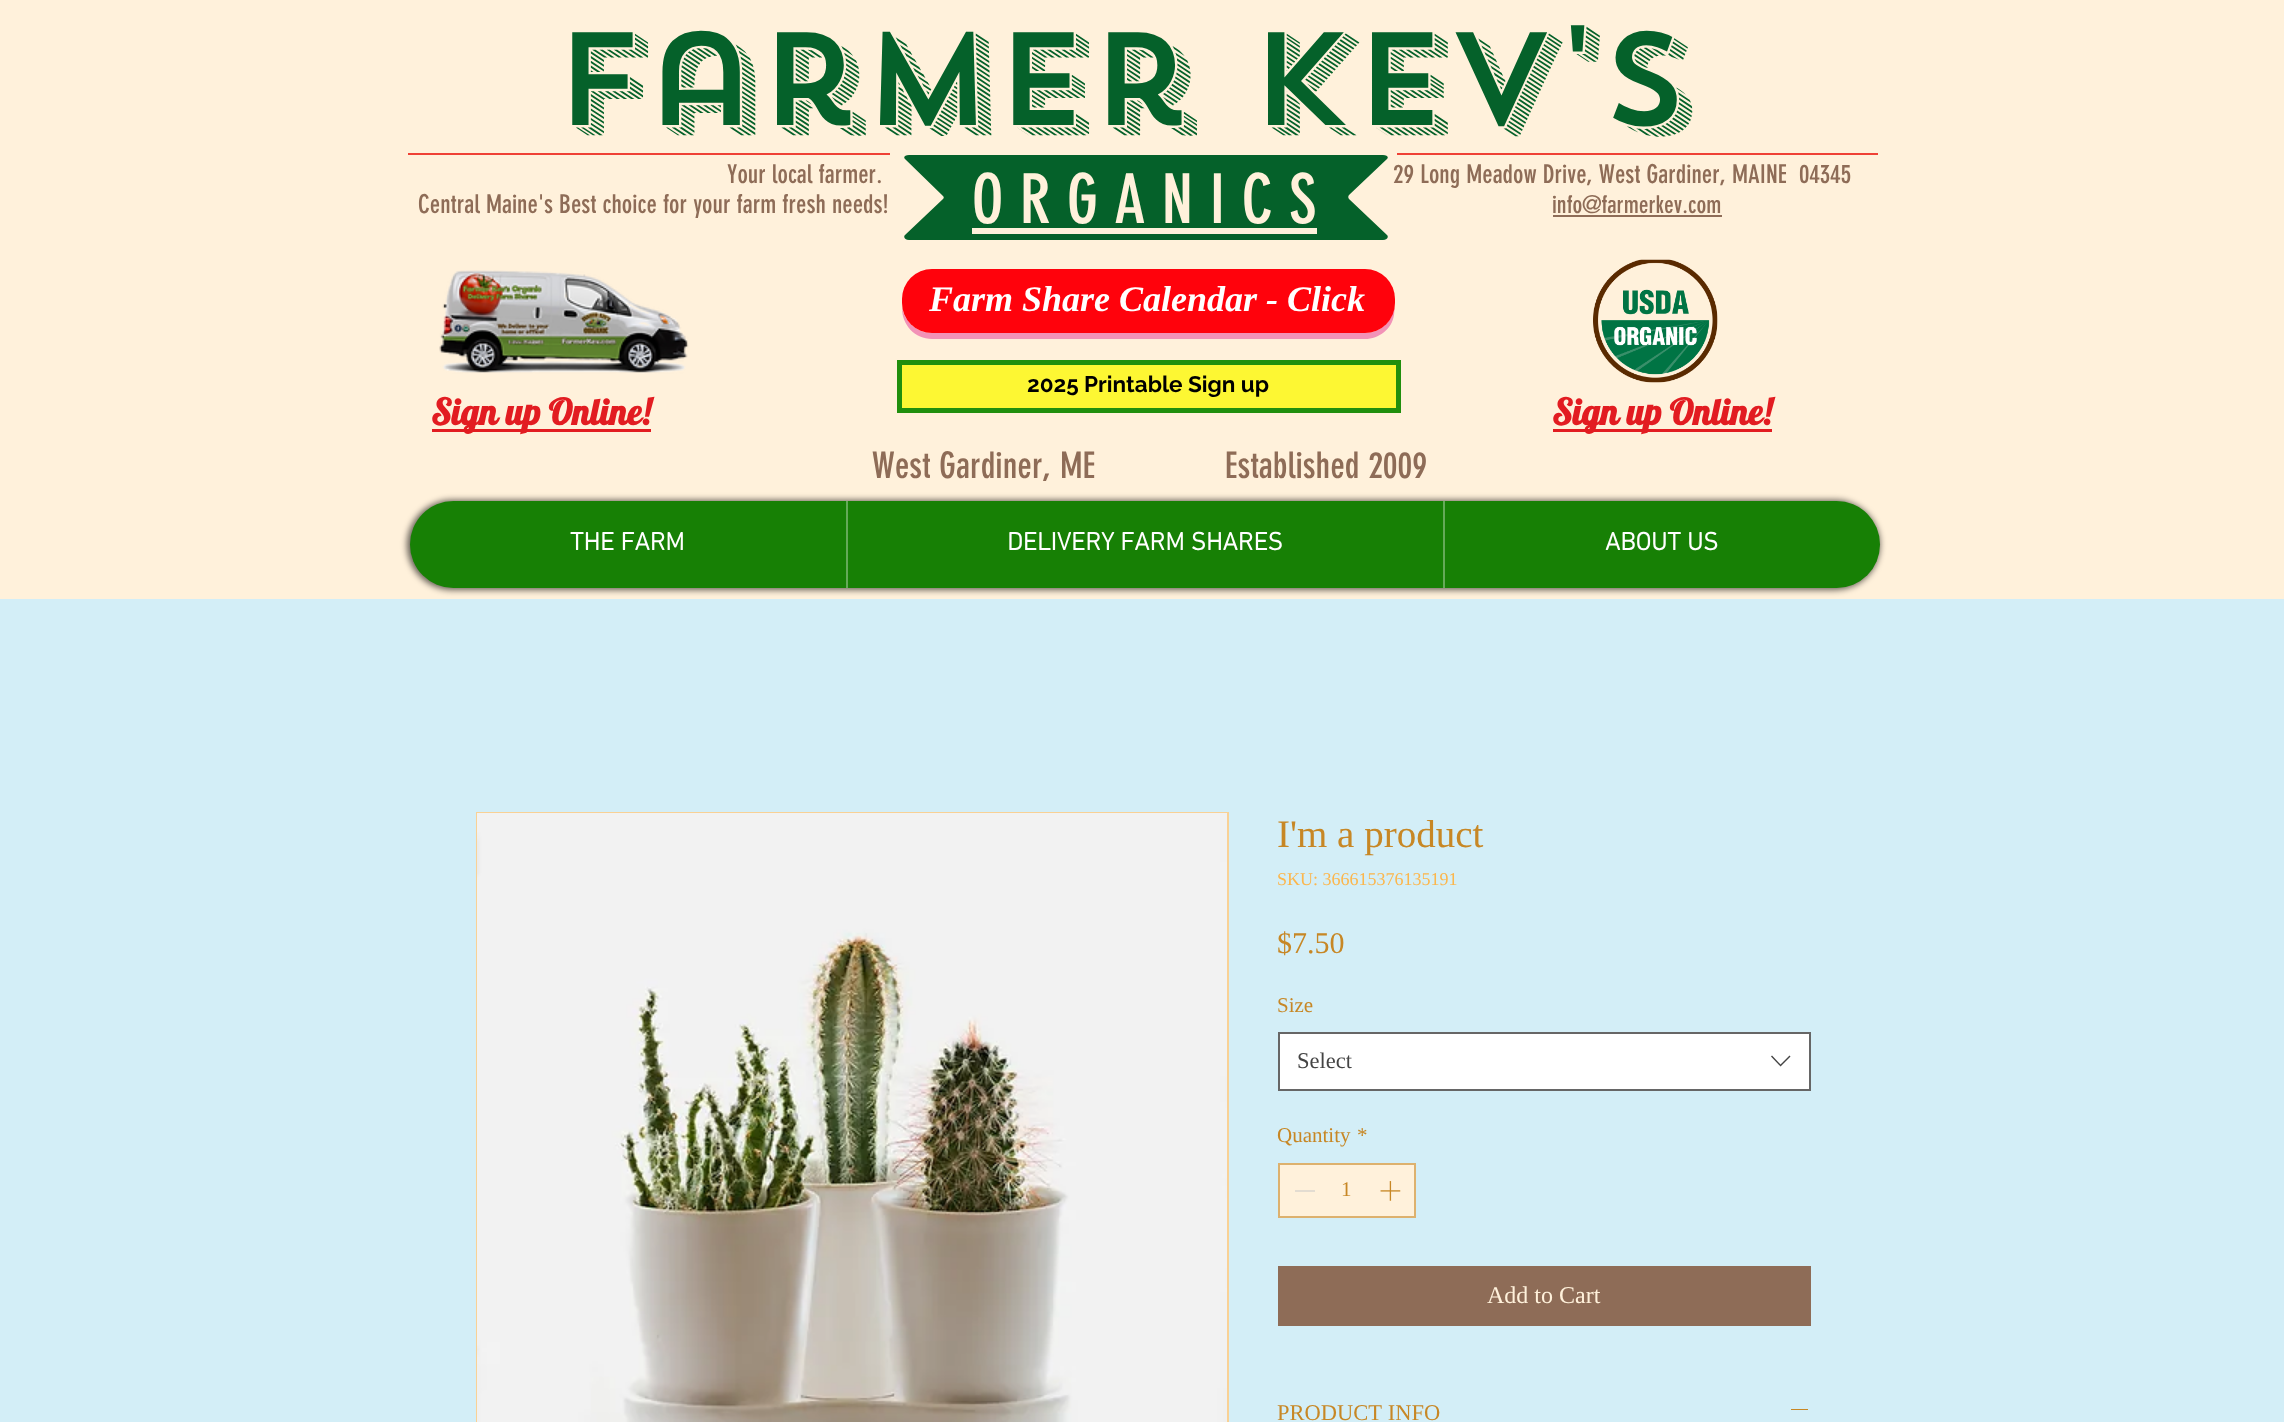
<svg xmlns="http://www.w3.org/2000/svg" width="2284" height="1422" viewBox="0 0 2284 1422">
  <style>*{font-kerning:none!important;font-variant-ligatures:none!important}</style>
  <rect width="100%" height="100%" fill="rgb(211,238,247)"/>
  <rect x="0" y="0" width="2284" height="599" fill="rgb(255,241,219)"/>
  <text x="553" y="125" font-family="'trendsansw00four'" font-size="132" font-weight="500" fill="rgb(5,97,42)">Farmer Kev's</text>
  <rect x="408" y="153" width="482" height="2" fill="rgb(239,65,53)"/>
  <rect x="1397" y="153" width="481" height="2" fill="rgb(239,65,53)"/>
  <g font-family="'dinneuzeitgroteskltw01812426'" font-size="25.5" fill="rgb(142,108,87)">
    <text x="727" y="183">Your local farmer.</text>
    <text x="418" y="213">Central Maine's Best choice for your farm fresh needs!</text>
  </g>
  <path d="M1387 159C1389 157 1387 155 1383 155H909C905 155 903 157 905 159L943 196C944 197 944 198 943 199L905 235C903 237 905 240 909 240H1383C1387 240 1389 237 1387 235L1349 199C1348 198 1348 196 1349 195Z" fill="rgb(5,97,42)"/>
  <text x="1393" y="183" font-family="'dinneuzeitgroteskltw01812426'" font-size="25.5" fill="rgb(142,108,87)">29 Long Meadow Drive, West Gardiner,</text>
  <text x="1732" y="183" font-family="'dinneuzeitgroteskltw01812426'" font-size="25.5" fill="rgb(142,108,87)" xml:space="preserve">MAINE  04345</text>
  <text x="1552" y="213" font-family="'dinneuzeitgroteskltw01812426'" font-size="24" fill="rgb(142,108,87)">info@farmerkev.com</text>
  <rect x="1553" y="215" width="169" height="2" fill="rgb(142,108,87)"/>
  <text x="972" y="223" font-family="'dinneuzeitgroteskltw01812426'" font-size="67.5" fill="rgb(255,241,219)">O R G A N I C S</text>
  <rect x="972" y="228" width="345" height="6" fill="rgb(255,241,219)"/>
  <image x="439" y="270" width="250" height="104" href="pic1.png"/>
  <path d="M902 308C902 325 915 339 932 339H1365C1379 339 1392 329 1394 315L1395 304C1394 320 1381 333 1365 333H932C917 333 905 322 902 308Z" fill="rgb(242,146,183)"/>
  <rect x="902" y="269" width="493" height="64" rx="30" fill="rgb(255,2,12)"/>
  <text x="929" y="311" font-family="Liberation Serif" font-size="36" font-weight="bold" font-style="italic" fill="rgb(255,255,255)">Farm Share Calendar - Click</text>
  <image x="1593" y="259" width="125" height="124" href="pic2.png"/>
  <rect x="899.5" y="362.5" width="499" height="48" fill="rgb(253,247,51)" stroke="rgb(32,143,13)" stroke-width="5"/>
  <text x="1027" y="392" font-family="Raleway" font-size="22.5" font-weight="bold" fill="rgb(0,0,0)">2025 Printable Sign up</text>
  <rect x="432" y="429" width="219" height="3" fill="rgb(226,28,33)"/>
  <text x="431" y="425" font-family="Lobster" font-size="36" font-weight="bold" fill="rgb(226,28,33)">Sign up Online!</text>
  <rect x="1553" y="429" width="219" height="3" fill="rgb(226,28,33)"/>
  <text x="1552" y="425" font-family="Lobster" font-size="36" font-weight="bold" fill="rgb(226,28,33)">Sign up Online!</text>
  <text x="872" y="478" font-family="'dinneuzeitgroteskltw01812426'" font-size="36" fill="rgb(142,108,87)" xml:space="preserve">West Gardiner, ME               Established 2009</text>
  <rect x="407" y="500" width="1473" height="90" rx="45" fill="rgba(0,0,0,0.6)" filter="blur(3px)"/>
  <rect x="410" y="501" width="1470" height="87" rx="43.5" fill="rgb(23,128,5)"/>
  <text x="570" y="550" font-family="'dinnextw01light'" font-size="25.5" font-weight="bold" fill="rgb(255,255,255)">THE FARM</text>
  <rect x="846" y="501" width="2" height="87" fill="rgb(100,170,88)"/>
  <text x="1007" y="550" font-family="'dinnextw01light'" font-size="25.5" font-weight="bold" fill="rgb(255,255,255)">DELIVERY FARM SHARES</text>
  <rect x="1443" y="501" width="2" height="87" fill="rgb(100,170,88)"/>
  <text x="1605" y="550" font-family="'dinnextw01light'" font-size="25.5" font-weight="bold" fill="rgb(255,255,255)">ABOUT US</text>
  <rect x="477" y="813" width="751" height="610" fill="none" stroke="rgb(249,209,149)" stroke-width="2"/>
  <image x="477" y="813" width="750" height="609" href="pic3.png"/>
  <text x="1277" y="847" font-family="Liberation Serif" font-size="39" fill="rgb(199,135,37)">I'm a product</text>
  <text x="1277" y="885" font-family="Liberation Serif" font-size="18" fill="rgb(252,182,76)">SKU: 366615376135191</text>
  <text x="1277" y="953" font-family="Liberation Serif" font-size="30" fill="rgb(199,135,37)">$7.50</text>
  <text x="1277" y="1012" font-family="Liberation Serif" font-size="21" fill="rgb(199,135,37)">Size</text>
  <rect x="1279" y="1033" width="531" height="57" fill="rgb(255,255,255)" stroke="rgb(102,102,102)" stroke-width="2"/>
  <text x="1297" y="1068" font-family="Liberation Serif" font-size="22.5" fill="rgb(68,68,68)">Select</text>
  <path d="M1789.5 1055.5L1790.5 1056.5L1780.5 1066.5L1771 1056.5L1772 1055.5L1780.5 1064.5Z" fill="rgb(68,68,68)" fill-rule="evenodd"/>
  <g font-family="Liberation Serif" font-size="21" fill="rgb(199,135,37)">
    <text x="1277" y="1142">Quantity</text>
    <text x="1357" y="1142">*</text>
  </g>
  <rect x="1279" y="1164" width="136" height="53" fill="rgb(255,241,219)" stroke="rgb(221,177,110)" stroke-width="2"/>
  <rect x="1295" y="1190" width="20" height="2" fill="rgb(227,220,209)"/>
  <text x="1341" y="1196" font-family="Liberation Serif" font-size="21" fill="rgb(199,135,37)">1</text>
  <image x="1380" y="1181" width="21" height="20" href="pic4.png"/>
  <rect x="1278" y="1266" width="533" height="60" fill="rgb(142,108,87)"/>
  <text x="1487" y="1303" font-family="Liberation Serif" font-size="24" fill="rgb(255,241,219)">Add to Cart</text>
  <text x="1277" y="1420" font-family="Liberation Serif" font-size="22.5" fill="rgb(199,135,37)">PRODUCT INFO</text>
  <rect x="1791" y="1409" width="17" height="1" fill="rgb(199,135,37)"/>
</svg>
